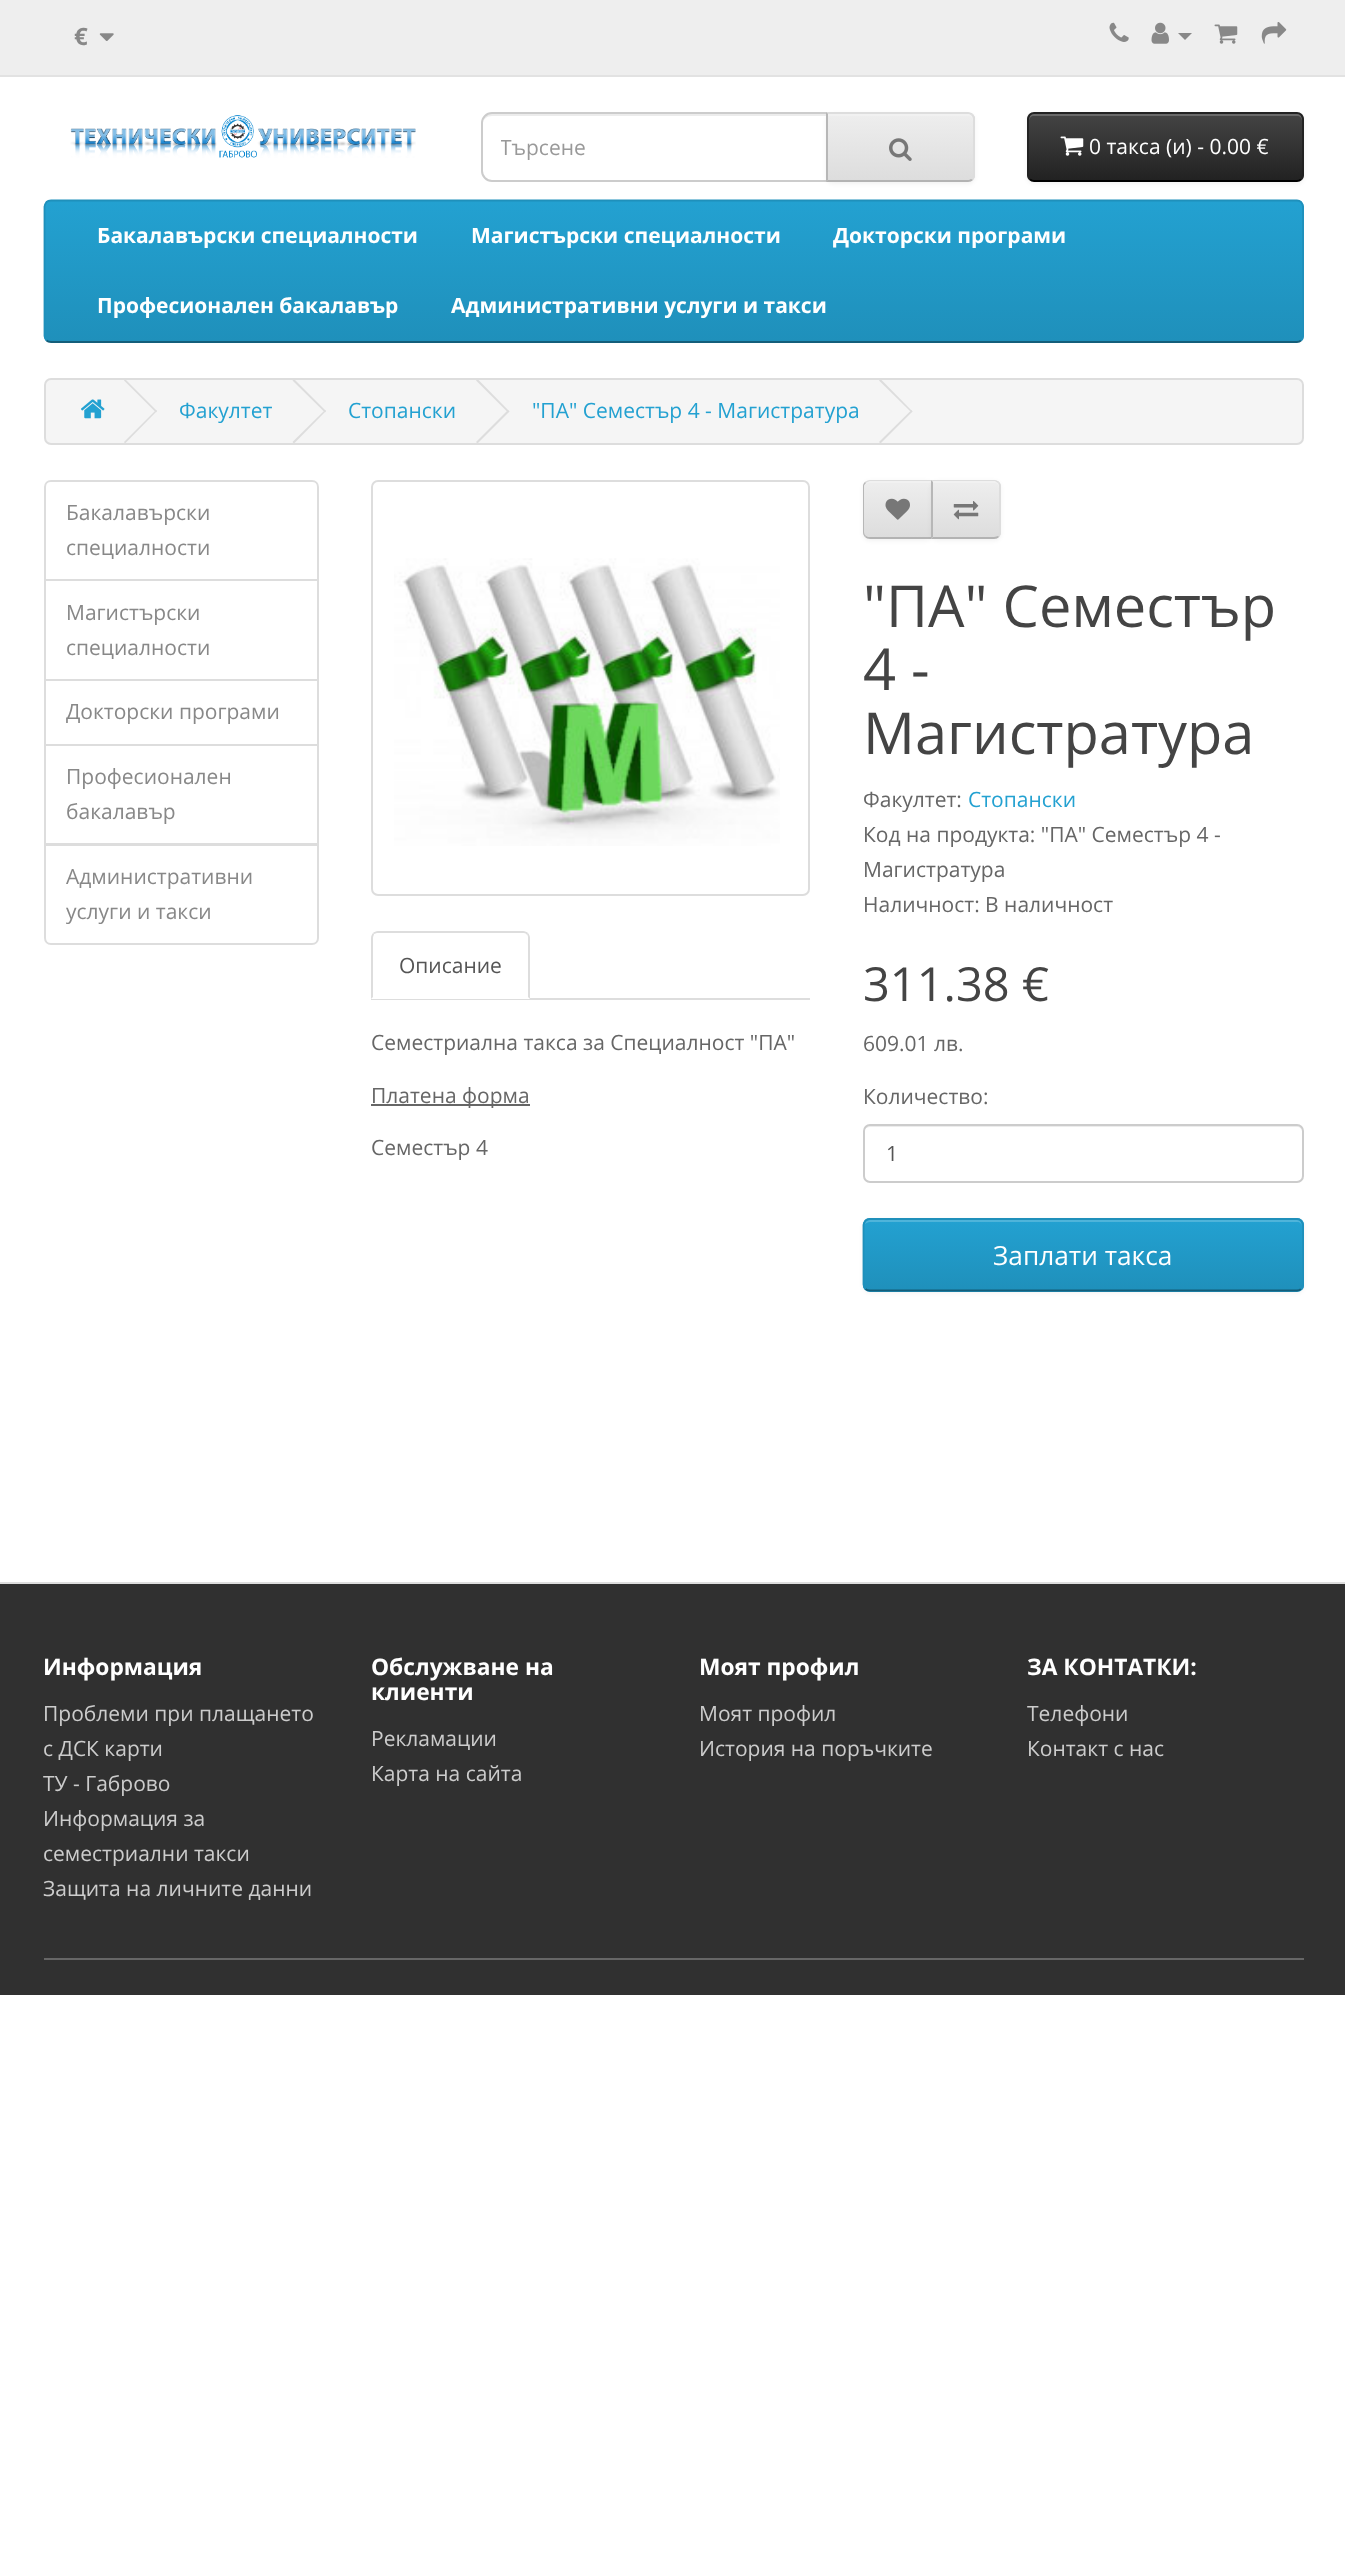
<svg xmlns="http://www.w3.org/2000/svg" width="1345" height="2563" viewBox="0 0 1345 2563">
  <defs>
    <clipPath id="clip1"><rect x="501" y="133" width="308" height="30"/></clipPath>
    <clipPath id="clip2"><path d="M826 112H968C972 112 975 115 975 119V175C975 179 972 182 968 182H826Z"/></clipPath>
    <linearGradient id="g1" gradientUnits="userSpaceOnUse" x1="900" y1="114" x2="900" y2="180"><stop offset="0" stop-color="rgb(238,238,238)"/><stop offset="1" stop-color="rgb(221,221,221)"/></linearGradient>
    <clipPath id="clip3"><rect x="1027" y="112" width="277" height="70" rx="7"/></clipPath>
    <linearGradient id="g2" gradientUnits="userSpaceOnUse" x1="1166" y1="114" x2="1166" y2="180"><stop offset="0" stop-color="rgb(68,68,68)"/><stop offset="1" stop-color="rgb(34,34,34)"/></linearGradient>
    <clipPath id="clip4"><rect x="44" y="200" width="1260" height="143" rx="7"/></clipPath>
    <linearGradient id="g3" gradientUnits="userSpaceOnUse" x1="674" y1="201" x2="674" y2="341"><stop offset="0" stop-color="rgb(35,161,209)"/><stop offset="1" stop-color="rgb(31,144,187)"/></linearGradient>
    <clipPath id="clip5"><path d="M870 480H933V539H870C866 539 863 536 863 532V487C863 483 866 480 870 480Z"/></clipPath>
    <linearGradient id="g4" gradientUnits="userSpaceOnUse" x1="898" y1="481" x2="898" y2="537"><stop offset="0" stop-color="rgb(238,238,238)"/><stop offset="1" stop-color="rgb(221,221,221)"/></linearGradient>
    <clipPath id="clip6"><path d="M931 480H994C998 480 1001 483 1001 487V532C1001 536 998 539 994 539H931Z"/></clipPath>
    <linearGradient id="g5" gradientUnits="userSpaceOnUse" x1="966" y1="481" x2="966" y2="537"><stop offset="0" stop-color="rgb(238,238,238)"/><stop offset="1" stop-color="rgb(221,221,221)"/></linearGradient>
    <clipPath id="clip7"><rect x="863" y="1218" width="441" height="74" rx="7"/></clipPath>
    <linearGradient id="g6" gradientUnits="userSpaceOnUse" x1="1083" y1="1220" x2="1083" y2="1290"><stop offset="0" stop-color="rgb(35,161,209)"/><stop offset="1" stop-color="rgb(31,144,187)"/></linearGradient>
  </defs>
  <rect width="100%" height="100%" fill="rgb(255,255,255)"/>
  <rect x="0" y="0" width="1345" height="75" fill="rgb(238,238,238)"/>
  <rect x="0" y="75" width="1345" height="2" fill="rgb(226,226,226)"/>
  <text x="74" y="45" font-family="Open Sans" font-size="24" font-weight="bold" fill="rgb(136,136,136)">€</text>
  <image x="99" y="33" width="15" height="8" href="pic1.png"/>
  <image x="1109" y="22" width="20" height="20" href="pic2.png"/>
  <image x="1151" y="22" width="18" height="22" href="pic3.png"/>
  <path d="M1178 33H1192L1185 40Z" fill="rgb(136,136,136)"/>
  <image x="1214" y="24" width="24" height="20" href="pic4.png"/>
  <image x="1261" y="22" width="26" height="22" href="pic5.png"/>
  <image x="70" y="115" width="346" height="43" href="pic6.png"/>
  <path d="M492 116H826V114H492C486 114 483 119 483 124C483 119 487 116 492 116Z" fill="rgb(236,236,236)"/>
  <path d="M492 113H827V181H492C486.5 181 482 176.5 482 171V123C482 117.5 486.5 113 492 113Z" fill="none" stroke="rgb(204,204,204)" stroke-width="2"/>
  <g clip-path="url(#clip1)">
    <text x="500" y="155" font-family="Open Sans" font-size="21" fill="rgb(153,153,153)">Търсене</text>
  </g>
  <rect x="826" y="114" width="149" height="70" rx="7" fill="rgba(0,0,0,0.05)" filter="blur(2px)"/>
  <g clip-path="url(#clip2)">
    <rect x="828" y="114" width="147" height="66" fill="url(#g1)"/>
  </g>
  <path d="M828 116H968C971 116 973 118 973 121V119C973 116 971 114 968 114H828Z" fill="rgb(241,241,241)"/>
  <path d="M826 112L828 114H969L971 115L973 114C972 113 970 112 968 112Z" fill="rgb(221,221,221)"/>
  <path d="M975 177L973 180L971 179C972 178 973 177 973 175V119C973 117 972 116 971 115L973 114L975 117Z" fill="rgb(221,221,221)"/>
  <path d="M968 182C970 182 972 181 973 180L971 179L969 180H828L826 182Z" fill="rgb(179,179,179)"/>
  <path d="M826 112V182L828 180V114Z" fill="rgb(183,183,183)"/>
  <image x="889" y="138" width="23" height="23" href="pic7.png"/>
  <rect x="1027" y="114" width="277" height="70" rx="7" fill="rgba(0,0,0,0.05)" filter="blur(2px)"/>
  <g clip-path="url(#clip3)">
    <rect x="1027" y="114" width="277" height="66" fill="url(#g2)"/>
  </g>
  <path d="M1034 116H1297C1300 116 1302 118 1302 121V119C1302 116 1300 114 1297 114H1034C1031 114 1029 116 1029 119V121C1029 118 1031 116 1034 116Z" fill="rgb(105,105,105)"/>
  <path d="M1301 179.5C1300 180.5 1298.5 181 1297 181H1034C1032.5 181 1031 180.5 1030 179.5" fill="none" stroke="rgb(0,0,0)" stroke-width="1.8"/>
  <path d="M1030 179.5C1029 178 1028 176.5 1028 175V119C1028 117.5 1029 116 1030 114.5C1031 113.5 1032.5 113 1034 113H1297C1298.5 113 1300 113.5 1301 114.5C1302 116 1303 117.5 1303 119V175C1303 176.5 1302 178 1301 179.5" fill="none" stroke="rgb(34,34,34)" stroke-width="1.8"/>
  <image x="1060" y="136" width="24" height="20" href="pic8.png"/>
  <text x="1089" y="154" font-family="Open Sans" font-size="21" fill="rgb(255,255,255)">0 такса (и) - 0.00 €</text>
  <g clip-path="url(#clip4)">
    <rect x="44" y="201" width="1260" height="140" fill="url(#g3)"/>
  </g>
  <path d="M1301 340.5C1300 341.5 1298.5 342 1297 342H51C49 342 47.5 341.5 46.5 340.5" fill="none" stroke="rgb(20,94,122)" stroke-width="1.8"/>
  <path d="M46.5 340.5C45.5 339 44.5 337.5 44.5 336V206.5C44.5 205 45.5 203.5 46.5 202C47.5 201 49 200.5 51 200.5H1297C1298.5 200.5 1300 201 1301 202C1302 203.5 1303 205 1303 206.5V336C1303 337.5 1302 339 1301 340.5" fill="none" stroke="rgb(31,144,187)" stroke-width="1.8"/>
  <g font-family="Open Sans" font-size="21" font-weight="bold" fill="rgb(255,255,255)">
    <text x="97" y="243">Бакалавърски специалности</text>
    <text x="471" y="243">Магистърски специалности</text>
    <text x="833" y="243">Докторски програми</text>
    <text x="97" y="313">Професионален бакалавър</text>
    <text x="451" y="313">Административни услуги и такси</text>
  </g>
  <rect x="45" y="379" width="1258" height="65" rx="6" fill="rgb(245,245,245)" stroke="rgb(221,221,221)" stroke-width="2"/>
  <image x="81" y="399" width="24" height="20" href="pic9.png"/>
  <path d="M124 380.5L125 379L157 411L156 412.5Z" fill="rgb(221,221,221)"/>
  <path d="M124 442L156 410L157 411L125 443.5Z" fill="rgb(221,221,221)"/>
  <text x="179" y="418" font-family="Open Sans" font-size="21" fill="rgb(35,161,209)">Факултет</text>
  <path d="M292.5 380.5L294 379L326 411L325 412.5Z" fill="rgb(221,221,221)"/>
  <path d="M292.5 442L325 410L326 411L294 443.5Z" fill="rgb(221,221,221)"/>
  <text x="348" y="418" font-family="Open Sans" font-size="21" fill="rgb(35,161,209)">Стопански</text>
  <path d="M476 380.5L477.5 379L509.5 411.5L508 412.5Z" fill="rgb(221,221,221)"/>
  <path d="M476 442L508 410L509.5 411.5L477.5 443.5Z" fill="rgb(221,221,221)"/>
  <text x="532" y="418" font-family="Open Sans" font-size="21" fill="rgb(35,161,209)">"ПА" Семестър 4 - Магистратура</text>
  <path d="M879 380.5L880.5 379L912.5 411.5L911.5 412.5Z" fill="rgb(221,221,221)"/>
  <path d="M879 442L911.5 410L912.5 411.5L880.5 443.5Z" fill="rgb(221,221,221)"/>
  <path d="M51 481H312C315.5 481 318 483.5 318 487V580H45V487C45 483.5 47.5 481 51 481Z" fill="none" stroke="rgb(221,221,221)" stroke-width="2"/>
  <g font-family="Open Sans" font-size="21" fill="rgb(136,136,136)">
    <text>
      <tspan x="66" y="520">Бакалавърски</tspan>
      <tspan x="66" y="555">специалности</tspan>
    </text>
  </g>
  <rect x="45" y="580" width="273" height="100" fill="none" stroke="rgb(221,221,221)" stroke-width="2"/>
  <g font-family="Open Sans" font-size="21" fill="rgb(136,136,136)">
    <text>
      <tspan x="66" y="620">Магистърски</tspan>
      <tspan x="66" y="655">специалности</tspan>
    </text>
  </g>
  <rect x="45" y="680" width="273" height="65" fill="none" stroke="rgb(221,221,221)" stroke-width="2"/>
  <text x="66" y="719" font-family="Open Sans" font-size="21" fill="rgb(136,136,136)">Докторски програми</text>
  <rect x="45" y="745" width="273" height="99" fill="none" stroke="rgb(221,221,221)" stroke-width="2"/>
  <g font-family="Open Sans" font-size="21" fill="rgb(136,136,136)">
    <text>
      <tspan x="66" y="784">Професионален</tspan>
      <tspan x="66" y="819">бакалавър</tspan>
    </text>
  </g>
  <path d="M45 845H318V938C318 941.5 315.5 944 312 944H51C47.5 944 45 941.5 45 938Z" fill="rgb(255,255,255)" stroke="rgb(221,221,221)" stroke-width="2"/>
  <g font-family="Open Sans" font-size="21" fill="rgb(136,136,136)">
    <text>
      <tspan x="66" y="884">Административни</tspan>
      <tspan x="66" y="919">услуги и такси</tspan>
    </text>
  </g>
  <rect x="372" y="481" width="437" height="414" rx="6" fill="none" stroke="rgb(221,221,221)" stroke-width="2"/>
  <image x="394" y="558" width="386" height="288" href="pic10.png"/>
  <rect x="371" y="998" width="439" height="2" fill="rgb(221,221,221)"/>
  <path d="M378 931H523C527 931 530 934 530 938V999H371V938C371 934 374 931 378 931Z" fill="rgb(255,255,255)"/>
  <path d="M378 931C376 931 374 932 373 933L374 934L377 933H523C524 933 526 933 527 935L528 933C527 932 525 931 523 931Z" fill="rgb(221,221,221)"/>
  <path d="M528 933C529 934 530 936 530 938V999L528 997V938C528 937 528 935 527 935Z" fill="rgb(221,221,221)"/>
  <path d="M371 938V999L373 997V938C373 936 374 935 374 934L373 933C372 934 371 936 371 938Z" fill="rgb(221,221,221)"/>
  <text x="399" y="973" font-family="Open Sans" font-size="21" fill="rgb(85,85,85)">Описание</text>
  <text x="371" y="1050" font-family="Open Sans" font-size="21" fill="rgb(102,102,102)">Семестриална такса за Специалност "ПА"</text>
  <rect x="371" y="1104" width="159" height="2" fill="rgb(102,102,102)"/>
  <g font-family="Open Sans" font-size="21" fill="rgb(102,102,102)">
    <text x="371" y="1103">Платена форма</text>
    <text x="371" y="1155">Семестър 4</text>
  </g>
  <rect x="863" y="481" width="70" height="60" rx="7" fill="rgba(0,0,0,0.05)" filter="blur(2px)"/>
  <g clip-path="url(#clip5)">
    <rect x="863" y="481" width="68" height="56" fill="url(#g4)"/>
  </g>
  <path d="M870 483H931V481H870C868 481 865 483 865 485C866 484 868 483 870 483Z" fill="rgb(241,241,241)"/>
  <path d="M870 480C868 480 866 481 865 482L866 483C867 482 869 481 870 481H931L932 480Z" fill="rgb(221,221,221)"/>
  <path d="M933 539L931 537H870C869 537 867 537 866 536L865 537C866 538 868 539 870 539Z" fill="rgb(179,179,179)"/>
  <path d="M865 482C864 483 863 484 863 486V532C863 534 864 536 865 537L866 536C865 535 864 534 864 532V486C864 485 865 484 866 483Z" fill="rgb(183,183,183)"/>
  <image x="885" y="498" width="25" height="22" href="pic11.png"/>
  <rect x="931" y="481" width="70" height="60" rx="7" fill="rgba(0,0,0,0.05)" filter="blur(2px)"/>
  <path d="M931 480H994C998 480 1001 483 1001 487V532C1001 536 998 539 994 539H931Z" fill="rgb(231,231,231)"/>
  <g clip-path="url(#clip6)">
    <rect x="932" y="481" width="69" height="56" fill="url(#g5)"/>
  </g>
  <path d="M933 483H994C997 483 999 485 999 488V486C999 483 997 481 994 481H933Z" fill="rgb(241,241,241)"/>
  <path d="M933 481H995L998 483L999 482C998 481 996 480 994 480H932L933 482Z" fill="rgb(221,221,221)"/>
  <path d="M999 482C1000 483 1001 484 1001 486V532C1001 534 1000 536 999 537L998 536C998 535 999 534 999 532V486C999 485 999 484 998 483Z" fill="rgb(221,221,221)"/>
  <path d="M994 539C996 539 998 538 999 537L998 536C997 536 996 537 994 537H933L931 539Z" fill="rgb(179,179,179)"/>
  <path d="M931 539L933 537V482L931 480Z" fill="rgb(183,183,183)"/>
  <image x="953" y="501" width="26" height="19" href="pic12.png"/>
  <g font-family="Open Sans" font-size="57.75" fill="rgb(68,68,68)">
    <text>
      <tspan x="863" y="627">"ПА" Семестър</tspan>
      <tspan x="863" y="690">4 -</tspan>
      <tspan x="863" y="754">Магистратура</tspan>
    </text>
  </g>
  <text x="863" y="807" font-family="Open Sans" font-size="21" fill="rgb(102,102,102)">Факултет:</text>
  <text x="968" y="807" font-family="Open Sans" font-size="21" fill="rgb(35,161,209)">Стопански</text>
  <g font-family="Open Sans" font-size="21" fill="rgb(102,102,102)">
    <text>
      <tspan x="863" y="842">Код на продукта: "ПА" Семестър 4 -</tspan>
      <tspan x="863" y="877">Магистратура</tspan>
      <tspan x="863" y="912">Наличност: В наличност</tspan>
    </text>
  </g>
  <text x="863" y="1001" font-family="Open Sans" font-size="47" fill="rgb(68,68,68)">311.38 €</text>
  <g font-family="Open Sans" font-size="21" fill="rgb(102,102,102)">
    <text x="863" y="1051">609.01 лв.</text>
    <text x="863" y="1104">Количество:</text>
  </g>
  <path d="M870 1127H1297C1300 1127 1302 1129 1302 1132C1302 1129 1301 1125 1297 1125H870C868 1125 865 1127 865 1129C866 1128 868 1127 870 1127Z" fill="rgb(236,236,236)"/>
  <rect x="864" y="1125" width="439" height="57" rx="6" fill="none" stroke="rgb(204,204,204)" stroke-width="2"/>
  <text x="886" y="1161" font-family="Open Sans" font-size="21" fill="rgb(85,85,85)">1</text>
  <rect x="863" y="1220" width="441" height="73" rx="7" fill="rgba(0,0,0,0.05)" filter="blur(2px)"/>
  <rect x="863" y="1218" width="441" height="74" rx="7" fill="rgb(34,154,200)"/>
  <g clip-path="url(#clip7)">
    <rect x="863" y="1220" width="441" height="70" fill="url(#g6)"/>
  </g>
  <path d="M870 1222H1297C1300 1222 1302 1224 1302 1227C1302 1224 1301 1220 1297 1220H870C868 1220 865 1222 865 1224C866 1223 868 1222 870 1222Z" fill="rgb(79,180,218)"/>
  <path d="M1301 1289C1300 1290 1298.5 1290.5 1297 1290.5H870C868 1290.5 866.5 1290 865.5 1289" fill="none" stroke="rgb(20,94,122)" stroke-width="1.8"/>
  <path d="M865.5 1289C864.5 1287.5 863.5 1286 863.5 1284.5V1225C863.5 1223.5 864.5 1222 865.5 1220.5C866.5 1219.5 868 1219 870 1219H1297C1298.5 1219 1300 1219.5 1301 1220.5C1302 1222 1303 1223.5 1303 1225V1284.5C1303 1286 1302 1287.5 1301 1289" fill="none" stroke="rgb(31,144,187)" stroke-width="1.8"/>
  <text x="993" y="1265" font-family="Open Sans" font-size="26.25" fill="rgb(255,255,255)">Заплати такса</text>
  <rect x="0" y="1584" width="1345" height="411" fill="rgb(48,48,48)"/>
  <rect x="0" y="1582" width="1345" height="2" fill="rgb(221,221,221)"/>
  <text x="43" y="1675" font-family="Open Sans" font-size="22.75" font-weight="bold" fill="rgb(255,255,255)">Информация</text>
  <g font-family="Open Sans" font-size="21" fill="rgb(204,204,204)">
    <text>
      <tspan x="43" y="1721">Проблеми при плащането</tspan>
      <tspan x="43" y="1756">с ДСК карти</tspan>
      <tspan x="43" y="1791">ТУ - Габрово</tspan>
      <tspan x="43" y="1826">Информация за</tspan>
      <tspan x="43" y="1861">семестриални такси</tspan>
      <tspan x="43" y="1896">Защита на личните данни</tspan>
    </text>
  </g>
  <g font-family="Open Sans" font-size="22.75" font-weight="bold" fill="rgb(255,255,255)">
    <text>
      <tspan x="371" y="1675">Обслужване на</tspan>
      <tspan x="371" y="1700">клиенти</tspan>
    </text>
  </g>
  <g font-family="Open Sans" font-size="21" fill="rgb(204,204,204)">
    <text>
      <tspan x="371" y="1746">Рекламации</tspan>
      <tspan x="371" y="1781">Карта на сайта</tspan>
    </text>
  </g>
  <text x="699" y="1675" font-family="Open Sans" font-size="22.75" font-weight="bold" fill="rgb(255,255,255)">Моят профил</text>
  <g font-family="Open Sans" font-size="21" fill="rgb(204,204,204)">
    <text>
      <tspan x="699" y="1721">Моят профил</tspan>
      <tspan x="699" y="1756">История на поръчките</tspan>
    </text>
  </g>
  <text x="1027" y="1675" font-family="Open Sans" font-size="22.75" font-weight="bold" fill="rgb(255,255,255)">ЗА КОНТАТКИ:</text>
  <g font-family="Open Sans" font-size="21" fill="rgb(204,204,204)">
    <text>
      <tspan x="1027" y="1721">Телефони</tspan>
      <tspan x="1027" y="1756">Контакт с нас</tspan>
    </text>
  </g>
  <rect x="44" y="1958" width="1260" height="2" fill="rgb(102,102,102)"/>
</svg>
